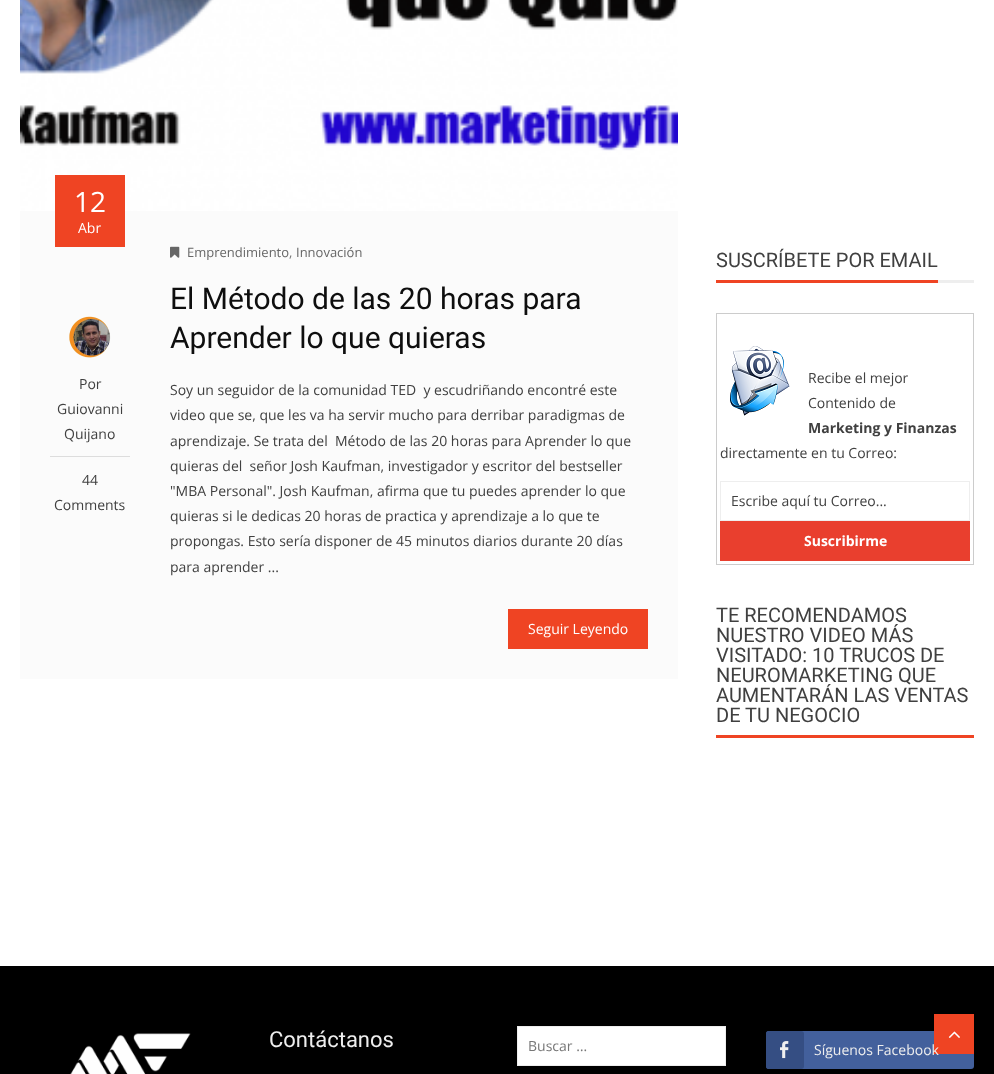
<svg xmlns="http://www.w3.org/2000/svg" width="994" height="1074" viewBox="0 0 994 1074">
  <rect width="100%" height="100%" fill="rgb(255,255,255)"/>
  <image x="20" y="0" width="658" height="211" href="pic1.png"/>
  <rect x="20" y="211" width="658" height="468" fill="rgb(251,251,251)"/>
  <rect x="55" y="175" width="70" height="72" fill="rgb(239,68,35)"/>
  <text x="74" y="212" font-family="Open Sans" font-size="28" fill="rgb(255,255,255)">12</text>
  <text x="78" y="233" font-family="Open Sans" font-size="14" fill="rgb(255,255,255)">Abr</text>
  <rect x="50" y="456" width="80" height="1" fill="rgb(221,221,221)"/>
  <image x="69" y="316" width="42" height="42" href="pic2.png"/>
  <g font-family="Open Sans" font-size="14" fill="rgb(64,64,64)">
    <text x="79" y="389">Por</text>
    <text x="57" y="414">Guiovanni</text>
    <text x="64" y="439">Quijano</text>
    <text x="82" y="485">44</text>
    <text x="54" y="510">Comments</text>
  </g>
  <image x="170" y="246" width="10" height="12" href="pic3.png"/>
  <text x="187" y="257" font-family="Open Sans" font-size="13" fill="rgb(102,102,102)">Emprendimiento</text>
  <text x="289" y="257" font-family="Open Sans" font-size="13" fill="rgb(119,119,119)">,</text>
  <text x="296" y="257" font-family="Open Sans" font-size="13" fill="rgb(102,102,102)">Innovación</text>
  <g font-family="Roboto" font-size="30" fill="rgb(14,14,14)">
    <text>
      <tspan x="170" y="309">El Método de las 20 horas para</tspan>
      <tspan x="170" y="348">Aprender lo que quieras</tspan>
    </text>
  </g>
  <g font-family="Open Sans" font-size="14" fill="rgb(64,64,64)">
    <text xml:space="preserve"><tspan x="170" y="395">Soy un seguidor de la comunidad TED  y escudriñando encontré este</tspan><tspan x="170" y="420">video que se, que les va ha servir mucho para derribar paradigmas de</tspan><tspan x="170" y="446">aprendizaje. Se trata del  Método de las 20 horas para Aprender lo que</tspan><tspan x="170" y="471">quieras del  señor Josh Kaufman, investigador y escritor del bestseller</tspan><tspan x="170" y="496">"MBA Personal". Josh Kaufman, afirma que tu puedes aprender lo que</tspan><tspan x="170" y="521">quieras si le dedicas 20 horas de practica y aprendizaje a lo que te</tspan><tspan x="170" y="546">propongas. Esto sería disponer de 45 minutos diarios durante 20 días</tspan><tspan x="170" y="572">para aprender ...</tspan></text>
  </g>
  <rect x="508" y="609" width="140" height="40" fill="rgb(239,68,35)"/>
  <text x="528" y="634" font-family="Open Sans" font-size="14" fill="rgb(255,255,255)">Seguir Leyendo</text>
  <rect x="938" y="280" width="36" height="3" fill="rgb(238,238,238)"/>
  <text x="716" y="267" font-family="Roboto" font-size="20" fill="rgb(64,64,64)">SUSCRÍBETE POR EMAIL</text>
  <rect x="716" y="280" width="222" height="3" fill="rgb(239,68,35)"/>
  <rect x="716.5" y="313.5" width="257" height="251" fill="none" stroke="rgb(204,204,204)"/>
  <image x="730" y="346" width="60" height="70" href="pic4.png"/>
  <g font-family="Open Sans" font-size="14" fill="rgb(64,64,64)">
    <text>
      <tspan x="808" y="383">Recibe el mejor</tspan>
      <tspan x="808" y="408">Contenido de</tspan>
    </text>
  </g>
  <text x="808" y="433" font-family="Open Sans" font-size="14" font-weight="bold" fill="rgb(64,64,64)">Marketing y Finanzas</text>
  <text x="720" y="458" font-family="Open Sans" font-size="14" fill="rgb(64,64,64)">directamente en tu Correo:</text>
  <rect x="720.5" y="481.5" width="249" height="39" fill="none" stroke="rgb(238,238,238)"/>
  <text x="731" y="506" font-family="Open Sans" font-size="14" fill="rgb(64,64,64)">Escribe aquí tu Correo...</text>
  <rect x="720" y="521" width="250" height="40" fill="rgb(233,63,46)"/>
  <text x="804" y="546" font-family="Open Sans" font-size="14" font-weight="bold" fill="rgb(255,255,255)">Suscribirme</text>
  <g font-family="Roboto" font-size="20" fill="rgb(64,64,64)">
    <text>
      <tspan x="716" y="622">TE RECOMENDAMOS</tspan>
      <tspan x="716" y="642">NUESTRO VIDEO MÁS</tspan>
      <tspan x="716" y="662">VISITADO: 10 TRUCOS DE</tspan>
      <tspan x="716" y="682">NEUROMARKETING QUE</tspan>
      <tspan x="716" y="702">AUMENTARÁN LAS VENTAS</tspan>
      <tspan x="716" y="722">DE TU NEGOCIO</tspan>
    </text>
  </g>
  <rect x="716" y="735" width="258" height="3" fill="rgb(239,68,35)"/>
  <rect x="0" y="966" width="994" height="108" fill="rgb(0,0,0)"/>
  <image x="70" y="1033" width="121" height="41" href="pic5.png"/>
  <text x="269" y="1047" font-family="Roboto" font-size="22" fill="rgb(238,238,238)">Contáctanos</text>
  <rect x="517.5" y="1026.5" width="208" height="39" fill="rgb(255,255,255)" stroke="rgb(238,238,238)"/>
  <text x="528" y="1051" font-family="Open Sans" font-size="14" fill="rgb(119,119,119)">Buscar …</text>
  <rect x="766" y="1031" width="208" height="38" rx="3" fill="rgb(67,96,156)"/>
  <rect x="766" y="1031" width="38" height="38" rx="3" fill="rgb(53,78,131)"/>
  <image x="780" y="1041" width="9" height="18" href="pic6.png"/>
  <rect x="934" y="1014" width="40" height="40" fill="rgb(239,68,35)"/>
  <text x="814" y="1055" font-family="Open Sans" font-size="14" fill="rgb(238,238,238)">Síguenos Facebook</text>
  <image x="948" y="1031" width="12" height="7" href="pic7.png"/>
</svg>
